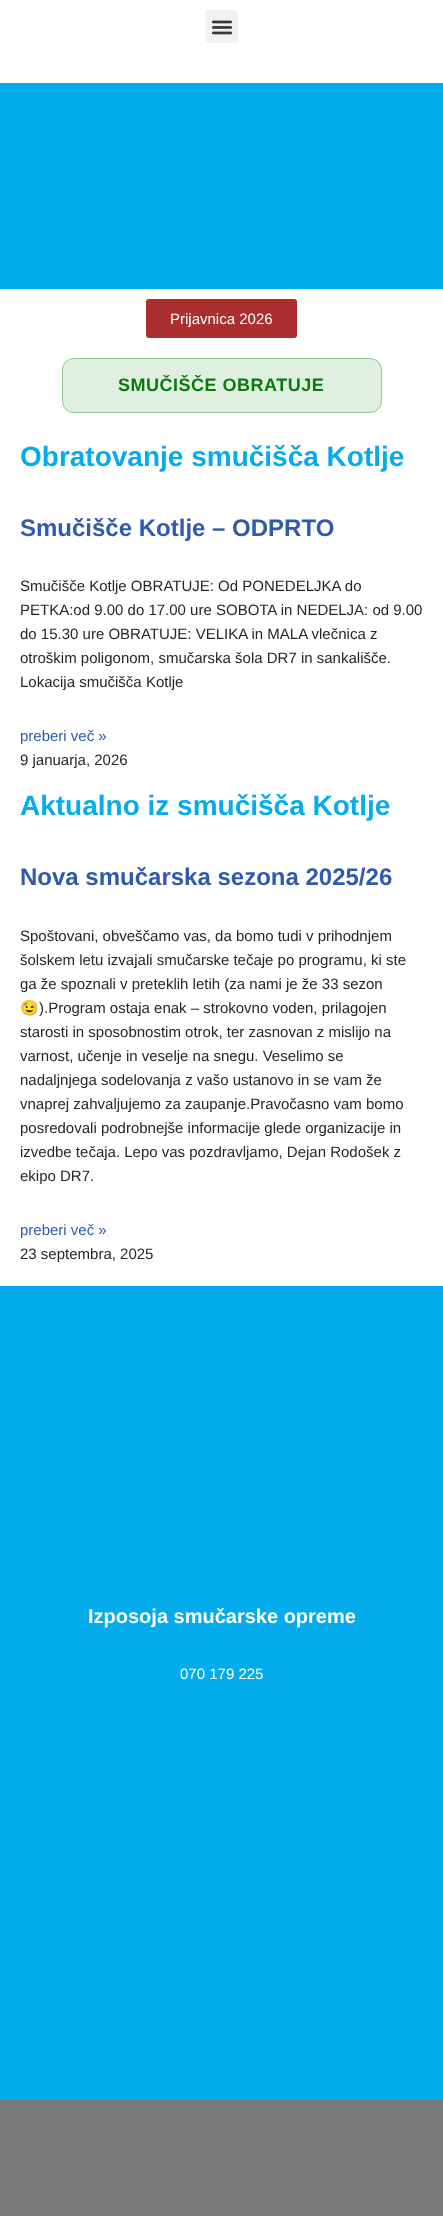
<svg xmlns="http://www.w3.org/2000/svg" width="443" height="2216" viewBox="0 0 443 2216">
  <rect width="100%" height="100%" fill="rgb(255,255,255)"/>
  <rect x="205" y="10" width="33" height="33" rx="3" fill="rgb(242,242,242)"/>
  <image x="211" y="20" width="22" height="15" href="pic1.png"/>
  <rect x="0" y="83" width="443" height="206" fill="rgb(4,172,235)"/>
  <rect x="146" y="299" width="151" height="39" rx="3" fill="rgb(171,47,47)"/>
  <text x="170" y="324" font-family="Liberation Sans" font-size="15" fill="rgb(255,255,255)">Prijavnica 2026</text>
  <rect x="62" y="358" width="320" height="55" rx="12" fill="rgb(224,240,224)"/>
  <rect x="62.5" y="358.5" width="319" height="54" rx="11.5" fill="none" stroke="rgba(0,128,0,0.35)"/>
  <text x="118" y="391" font-family="Liberation Sans" font-size="18" font-weight="bold" letter-spacing="0.5" fill="rgb(11,122,11)">SMUČIŠČE OBRATUJE</text>
  <text x="20" y="466" font-family="Liberation Sans" font-size="28" font-weight="bold" fill="rgb(4,172,235)">Obratovanje smučišča Kotlje</text>
  <text x="20" y="536" font-family="Liberation Sans" font-size="24" font-weight="bold" fill="rgb(47,90,174)">Smučišče Kotlje – ODPRTO</text>
  <g font-family="Liberation Sans" font-size="15" fill="rgb(39,38,38)">
    <text>
      <tspan x="20" y="591">Smučišče Kotlje OBRATUJE: Od PONEDELJKA do</tspan>
      <tspan x="20" y="615">PETKA:od 9.00 do 17.00 ure SOBOTA in NEDELJA: od 9.00</tspan>
      <tspan x="20" y="639">do 15.30 ure OBRATUJE: VELIKA in MALA vlečnica z</tspan>
      <tspan x="20" y="663">otroškim poligonom, smučarska šola DR7 in sankališče.</tspan>
      <tspan x="20" y="687">Lokacija smučišča Kotlje</tspan>
    </text>
  </g>
  <text x="20" y="741" font-family="Liberation Sans" font-size="15" fill="rgb(47,90,174)">preberi več »</text>
  <text x="20" y="765" font-family="Liberation Sans" font-size="15" fill="rgb(39,38,38)">9 januarja, 2026</text>
  <text x="20" y="815" font-family="Liberation Sans" font-size="28" font-weight="bold" fill="rgb(4,172,235)">Aktualno iz smučišča Kotlje</text>
  <text x="20" y="885" font-family="Liberation Sans" font-size="24" font-weight="bold" fill="rgb(47,90,174)">Nova smučarska sezona 2025/26</text>
  <g font-family="Liberation Sans" font-size="15" fill="rgb(39,38,38)">
    <text>
      <tspan x="20" y="941">Spoštovani, obveščamo vas, da bomo tudi v prihodnjem</tspan>
      <tspan x="20" y="965">šolskem letu izvajali smučarske tečaje po programu, ki ste</tspan>
      <tspan x="20" y="989">ga že spoznali v preteklih letih (za nami je že 33 sezon</tspan>
    </text>
  </g>
  <text x="20" y="1013" font-family="Noto Color Emoji" font-size="15" fill="rgb(39,38,38)">😉</text>
  <g font-family="Liberation Sans" font-size="15" fill="rgb(39,38,38)">
    <text x="39" y="1013">).Program ostaja enak – strokovno voden, prilagojen</text>
    <text>
      <tspan x="20" y="1037">starosti in sposobnostim otrok, ter zasnovan z mislijo na</tspan>
      <tspan x="20" y="1061">varnost, učenje in veselje na snegu. Veselimo se</tspan>
      <tspan x="20" y="1085">nadaljnjega sodelovanja z vašo ustanovo in se vam že</tspan>
      <tspan x="20" y="1109">vnaprej zahvaljujemo za zaupanje.Pravočasno vam bomo</tspan>
      <tspan x="20" y="1133">posredovali podrobnejše informacije glede organizacije in</tspan>
      <tspan x="20" y="1157">izvedbe tečaja. Lepo vas pozdravljamo, Dejan Rodošek z</tspan>
      <tspan x="20" y="1181">ekipo DR7.</tspan>
    </text>
  </g>
  <text x="20" y="1235" font-family="Liberation Sans" font-size="15" fill="rgb(47,90,174)">preberi več »</text>
  <text x="20" y="1259" font-family="Liberation Sans" font-size="15" fill="rgb(39,38,38)">23 septembra, 2025</text>
  <rect x="0" y="1286" width="443" height="814" fill="rgb(4,172,235)"/>
  <text x="88" y="1623" font-family="Liberation Sans" font-size="20" font-weight="bold" fill="rgb(255,255,255)">Izposoja smučarske opreme</text>
  <text x="180" y="1679" font-family="Liberation Sans" font-size="15" fill="rgb(255,255,255)">070 179 225</text>
  <rect x="0" y="2100" width="443" height="116" fill="rgb(122,122,122)"/>
</svg>
